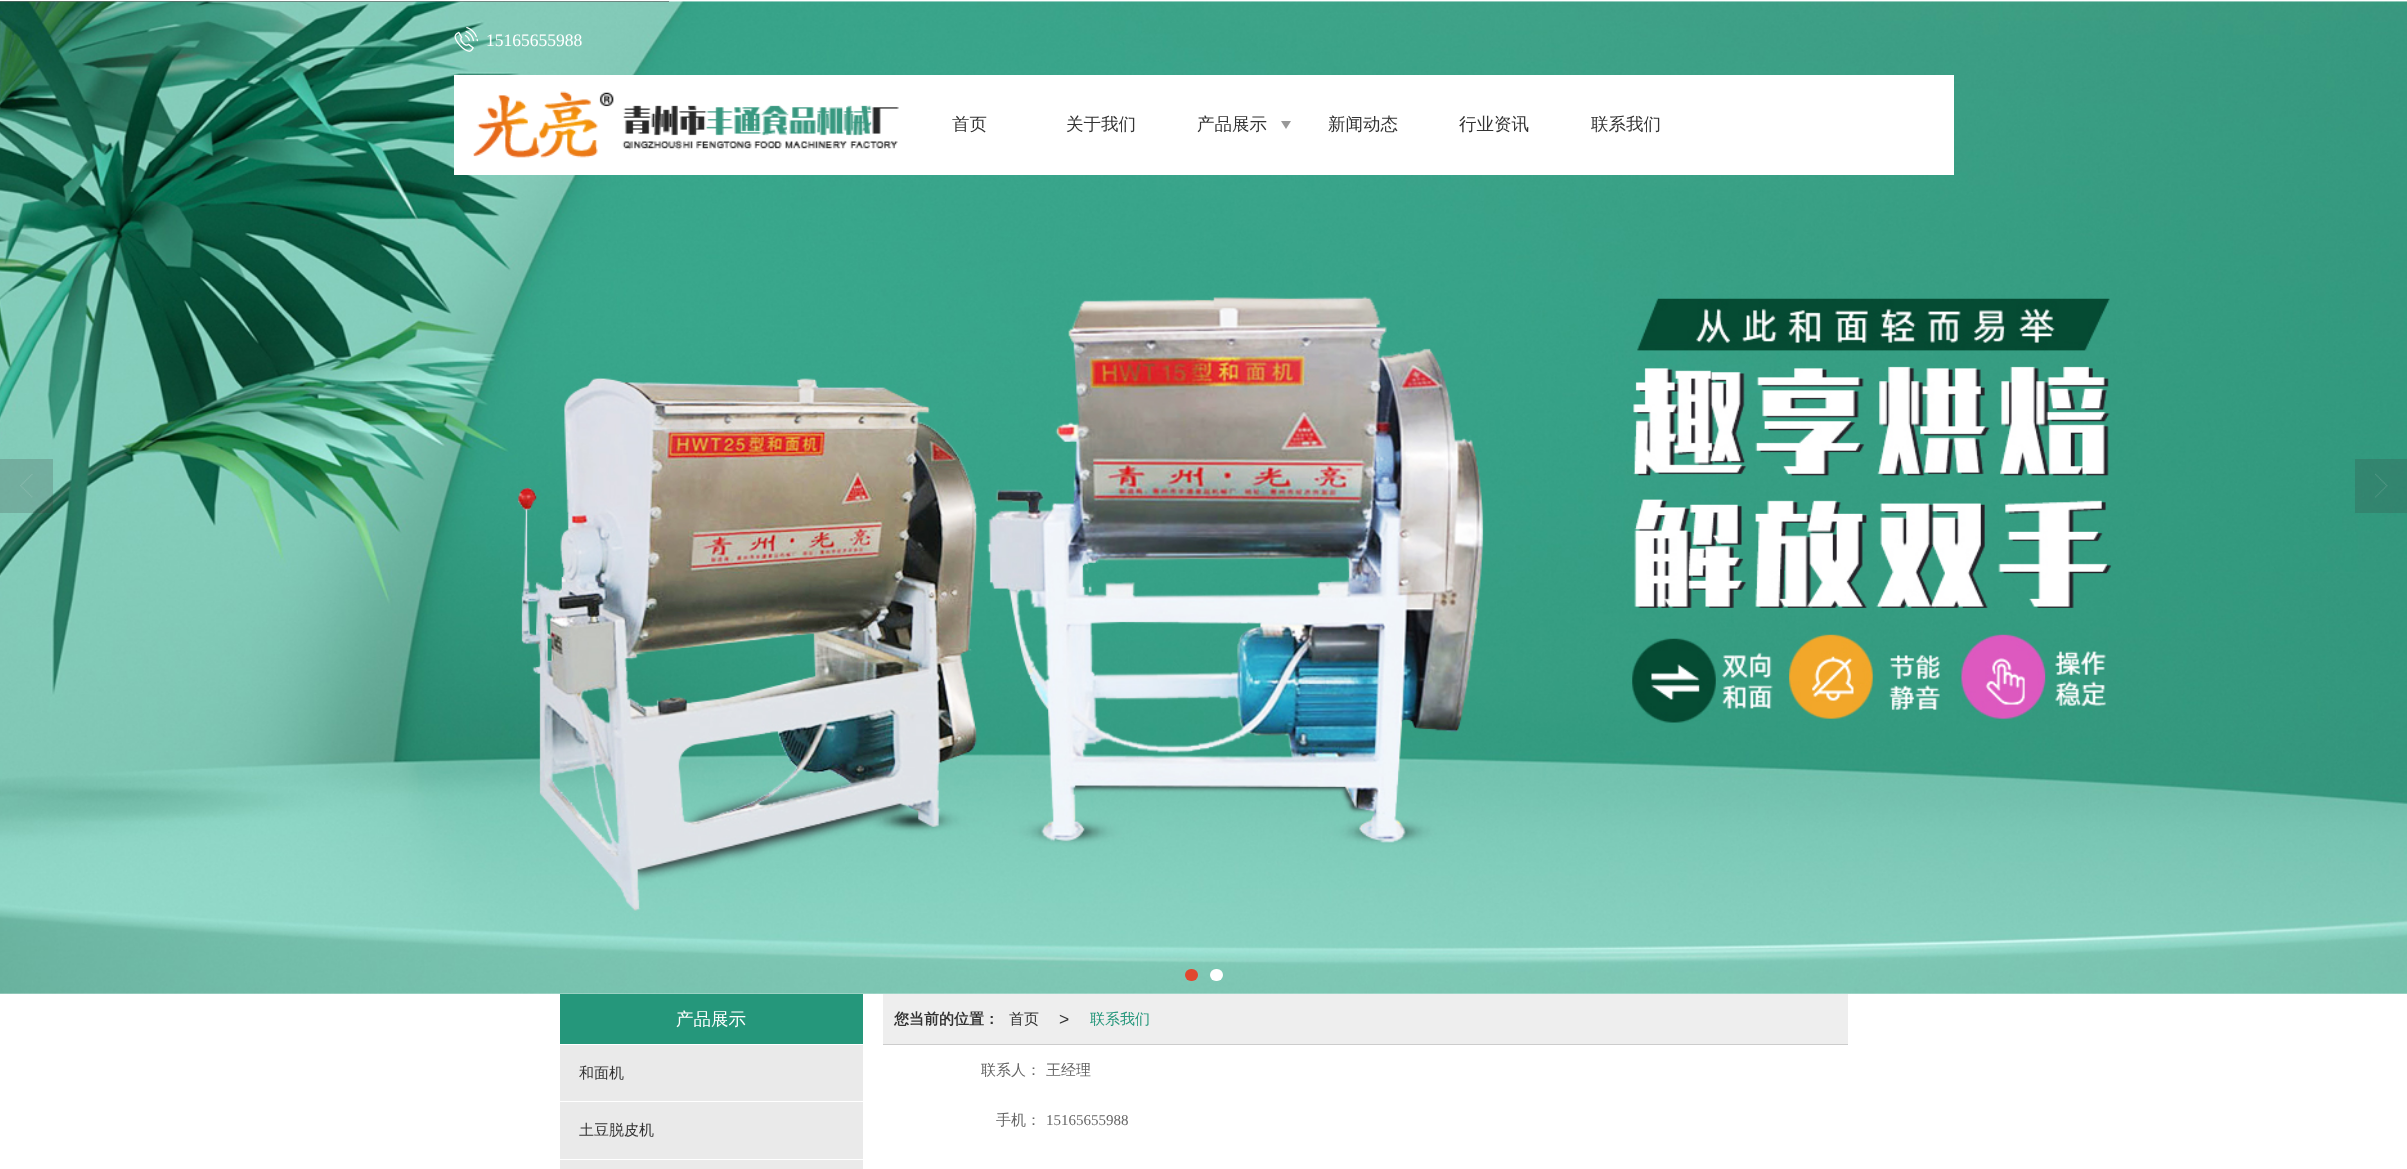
<svg xmlns="http://www.w3.org/2000/svg" width="2407" height="1169" viewBox="0 0 2407 1169">
  <rect width="100%" height="100%" fill="rgb(255,255,255)"/>
  <image x="0" y="1" width="2407" height="993" href="pic1.png"/>
  <rect x="0" y="1" width="669" height="1" fill="rgba(0,0,0,0.4)"/>
  <rect x="0" y="459" width="53" height="54" fill="rgba(57,57,57,0.2)"/>
  <image x="20" y="474" width="13" height="24" href="pic2.png"/>
  <rect x="2355" y="459" width="52" height="54" fill="rgba(57,57,57,0.2)"/>
  <image x="2375" y="473" width="13" height="25" href="pic3.png"/>
  <rect x="1185" y="969" width="13" height="12" rx="6" fill="rgb(225,71,47)"/>
  <rect x="1210" y="969" width="13" height="12" rx="6" fill="rgb(255,255,255)"/>
  <rect x="454" y="75" width="1500" height="100" fill="rgb(255,255,255)"/>
  <image x="454" y="26" width="24" height="26" href="pic4.png"/>
  <text x="486" y="46" font-family="Liberation Serif" font-size="17.5" fill="rgb(255,255,255)">15165655988</text>
  <image x="473" y="91" width="426" height="67" href="pic5.png"/>
  <g font-family="WenQuanYi Zen Hei" font-size="17.5" font-weight="500" fill="rgb(51,51,51)">
    <text x="952" y="130">首页</text>
    <text x="1066" y="130">关于我们</text>
    <text x="1197" y="130">产品展示</text>
  </g>
  <path d="M1281 121H1291L1286 129Z" fill="rgb(153,153,153)"/>
  <g font-family="WenQuanYi Zen Hei" font-size="17.5" font-weight="500" fill="rgb(51,51,51)">
    <text x="1328" y="130">新闻动态</text>
    <text x="1459" y="130">行业资讯</text>
    <text x="1591" y="130">联系我们</text>
  </g>
  <rect x="560" y="994" width="303" height="50" fill="rgb(37,151,123)"/>
  <text x="676" y="1025" font-family="WenQuanYi Zen Hei" font-size="17.5" font-weight="500" fill="rgb(255,255,255)">产品展示</text>
  <rect x="560" y="1045" width="303" height="124" fill="rgb(234,234,234)"/>
  <text x="579" y="1078" font-family="WenQuanYi Zen Hei" font-size="15" font-weight="500" fill="rgb(51,51,51)">和面机</text>
  <rect x="560" y="1101" width="303" height="1" fill="rgb(255,255,255)"/>
  <text x="579" y="1135" font-family="WenQuanYi Zen Hei" font-size="15" font-weight="500" fill="rgb(51,51,51)">土豆脱皮机</text>
  <rect x="560" y="1159" width="303" height="1" fill="rgb(255,255,255)"/>
  <rect x="883" y="994" width="965" height="50" fill="rgb(238,238,238)"/>
  <rect x="883" y="1044" width="965" height="1" fill="rgb(204,204,204)"/>
  <text x="894" y="1024" font-family="WenQuanYi Zen Hei" font-size="15" font-weight="bold" fill="rgb(51,51,51)">您当前的位置：</text>
  <text x="1009" y="1024" font-family="WenQuanYi Zen Hei" font-size="15" font-weight="500" fill="rgb(51,51,51)">首页</text>
  <text x="1059" y="1025" font-family="Liberation Sans" font-size="17.5" fill="rgb(51,51,51)">&gt;</text>
  <text x="1090" y="1024" font-family="WenQuanYi Zen Hei" font-size="15" font-weight="500" fill="rgb(37,151,123)">联系我们</text>
  <g font-family="WenQuanYi Zen Hei" font-size="15" font-weight="500" fill="rgb(102,102,102)">
    <text x="981" y="1075">联系人：</text>
    <text x="1046" y="1075">王经理</text>
    <text x="996" y="1125">手机：</text>
  </g>
  <text x="1046" y="1125" font-family="Liberation Serif" font-size="15" fill="rgb(102,102,102)">15165655988</text>
</svg>
